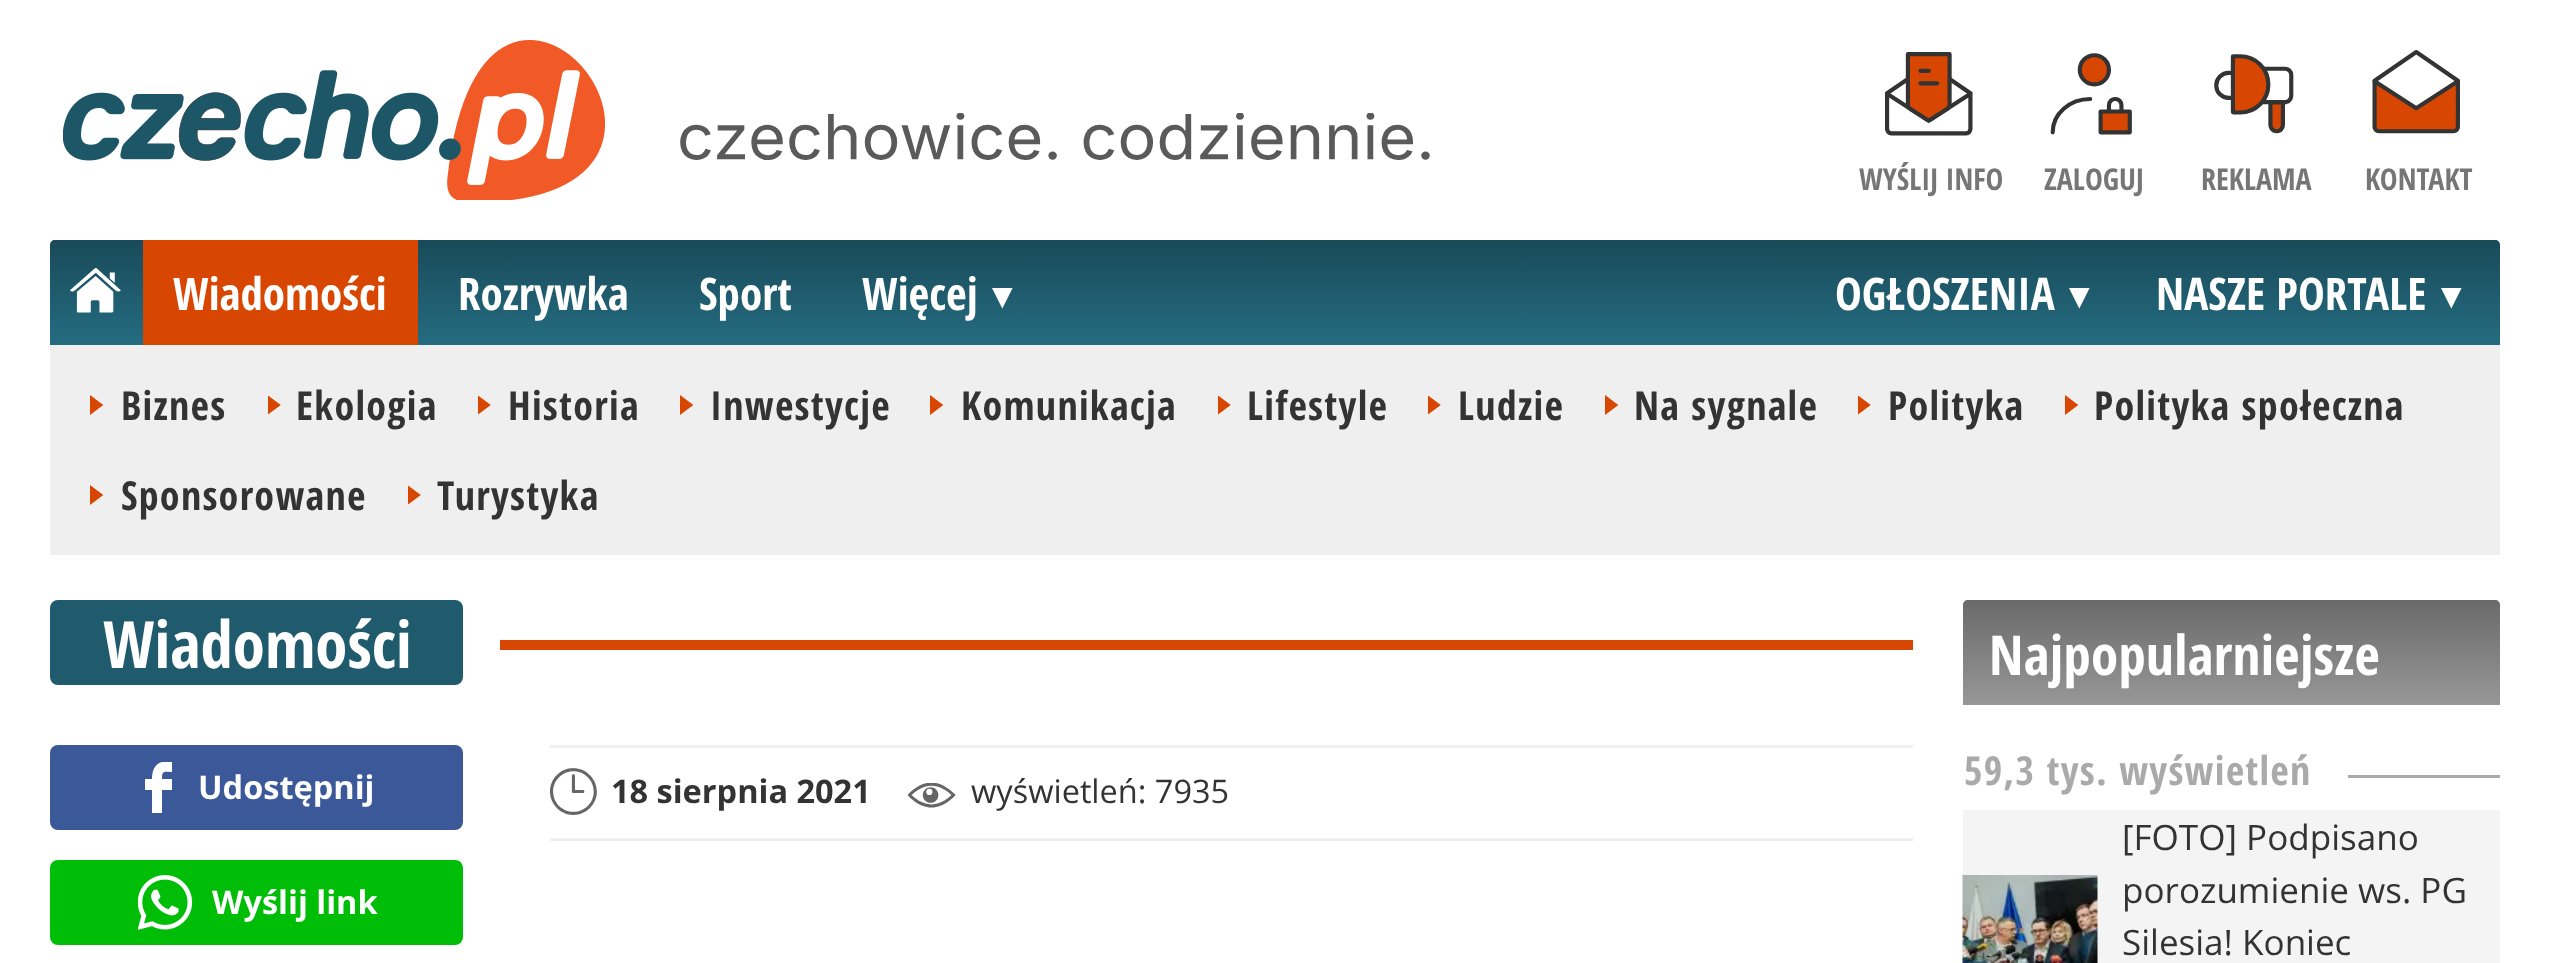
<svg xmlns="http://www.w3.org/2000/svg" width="2550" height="963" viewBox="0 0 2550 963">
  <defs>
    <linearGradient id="g1" gradientUnits="userSpaceOnUse" x1="1275" y1="240" x2="1275" y2="345"><stop offset="0" stop-color="rgb(25,74,89)"/><stop offset="1" stop-color="rgb(37,108,129)"/></linearGradient>
    <linearGradient id="g2" gradientUnits="userSpaceOnUse" x1="2231" y1="600" x2="2231" y2="705"><stop offset="0" stop-color="rgb(106,106,106)"/><stop offset="1" stop-color="rgb(151,151,151)"/></linearGradient>
  </defs>
  <rect width="100%" height="100%" fill="rgb(255,255,255)"/>
  <image x="63" y="40" width="542" height="160" href="pic1.png"/>
  <image x="680" y="113" width="750" height="47" href="pic2.png"/>
  <image x="1885" y="52" width="88" height="84" href="pic3.png"/>
  <text x="1859" y="190" font-family="Open Sans Condensed" font-size="30" font-weight="bold" fill="rgb(118,118,118)">WYŚLIJ INFO</text>
  <image x="2050" y="53" width="82" height="82" href="pic4.png"/>
  <text x="2044" y="190" font-family="Open Sans Condensed" font-size="30" font-weight="bold" fill="rgb(118,118,118)">ZALOGUJ</text>
  <image x="2214" y="54" width="80" height="80" href="pic5.png"/>
  <text x="2201" y="190" font-family="Open Sans Condensed" font-size="30" font-weight="bold" fill="rgb(118,118,118)">REKLAMA</text>
  <image x="2372" y="50" width="88" height="84" href="pic6.png"/>
  <text x="2365" y="190" font-family="Open Sans Condensed" font-size="30" font-weight="bold" fill="rgb(118,118,118)">KONTAKT</text>
  <path d="M55 240H2495C2498 240 2500 242 2500 245V345H50V245C50 242 52 240 55 240Z" fill="url(#g1)"/>
  <image x="70" y="268" width="51" height="45" href="pic7.png"/>
  <rect x="143" y="240" width="275" height="105" fill="rgb(216,71,1)"/>
  <g font-family="Open Sans Condensed" font-size="45" font-weight="bold" fill="rgb(255,255,255)">
    <text x="173" y="310">Wiadomości</text>
    <text x="458" y="310">Rozrywka</text>
    <text x="699" y="310">Sport</text>
    <text x="862" y="310">Więcej</text>
  </g>
  <text x="985" y="308" font-family="Liberation Sans" font-size="35" font-weight="bold" fill="rgb(255,255,255)">▼</text>
  <text x="1835" y="310" font-family="Open Sans Condensed" font-size="45" font-weight="bold" fill="rgb(255,255,255)">OGŁOSZENIA</text>
  <text x="2062" y="308" font-family="Liberation Sans" font-size="35" font-weight="bold" fill="rgb(255,255,255)">▼</text>
  <text x="2156" y="310" font-family="Open Sans Condensed" font-size="45" font-weight="bold" fill="rgb(255,255,255)">NASZE PORTALE</text>
  <text x="2434" y="308" font-family="Liberation Sans" font-size="35" font-weight="bold" fill="rgb(255,255,255)">▼</text>
  <rect x="50" y="345" width="2450" height="210" fill="rgb(239,239,239)"/>
  <image x="90" y="395" width="14" height="20" href="pic8.png"/>
  <text x="121" y="420" font-family="Open Sans Condensed" font-size="40" font-weight="bold" letter-spacing="1.25" fill="rgb(51,51,51)">Biznes</text>
  <image x="268" y="395" width="13" height="20" href="pic9.png"/>
  <text x="296" y="420" font-family="Open Sans Condensed" font-size="40" font-weight="bold" letter-spacing="1.25" fill="rgb(51,51,51)">Ekologia</text>
  <image x="478" y="395" width="13" height="20" href="pic9.png"/>
  <text x="508" y="420" font-family="Open Sans Condensed" font-size="40" font-weight="bold" letter-spacing="1.25" fill="rgb(51,51,51)">Historia</text>
  <image x="680" y="395" width="14" height="20" href="pic8.png"/>
  <text x="710" y="420" font-family="Open Sans Condensed" font-size="40" font-weight="bold" letter-spacing="1.25" fill="rgb(51,51,51)">Inwestycje</text>
  <image x="930" y="395" width="14" height="20" href="pic8.png"/>
  <text x="961" y="420" font-family="Open Sans Condensed" font-size="40" font-weight="bold" letter-spacing="1.25" fill="rgb(51,51,51)">Komunikacja</text>
  <image x="1218" y="395" width="13" height="20" href="pic9.png"/>
  <text x="1247" y="420" font-family="Open Sans Condensed" font-size="40" font-weight="bold" letter-spacing="1.25" fill="rgb(51,51,51)">Lifestyle</text>
  <image x="1428" y="395" width="13" height="20" href="pic9.png"/>
  <text x="1458" y="420" font-family="Open Sans Condensed" font-size="40" font-weight="bold" letter-spacing="1.25" fill="rgb(51,51,51)">Ludzie</text>
  <image x="1605" y="395" width="14" height="20" href="pic8.png"/>
  <text x="1634" y="420" font-family="Open Sans Condensed" font-size="40" font-weight="bold" letter-spacing="1.25" fill="rgb(51,51,51)">Na sygnale</text>
  <image x="1858" y="395" width="13" height="20" href="pic9.png"/>
  <text x="1888" y="420" font-family="Open Sans Condensed" font-size="40" font-weight="bold" letter-spacing="1.25" fill="rgb(51,51,51)">Polityka</text>
  <image x="2065" y="395" width="14" height="20" href="pic8.png"/>
  <text x="2094" y="420" font-family="Open Sans Condensed" font-size="40" font-weight="bold" letter-spacing="1.25" fill="rgb(51,51,51)">Polityka społeczna</text>
  <image x="90" y="485" width="14" height="20" href="pic8.png"/>
  <text x="121" y="510" font-family="Open Sans Condensed" font-size="40" font-weight="bold" letter-spacing="1.25" fill="rgb(51,51,51)">Sponsorowane</text>
  <image x="408" y="485" width="13" height="20" href="pic9.png"/>
  <text x="437" y="510" font-family="Open Sans Condensed" font-size="40" font-weight="bold" letter-spacing="1.25" fill="rgb(51,51,51)">Turystyka</text>
  <rect x="50" y="600" width="413" height="85" rx="8" fill="rgb(31,91,109)"/>
  <text x="103" y="668" font-family="Open Sans Condensed" font-size="65" font-weight="bold" fill="rgb(255,255,255)">Wiadomości</text>
  <rect x="500" y="640" width="1413" height="10" fill="rgb(216,71,1)"/>
  <rect x="50" y="745" width="413" height="85" rx="8" fill="rgb(59,89,152)"/>
  <path d="M152 813V790H145V779H152C152 772 154 764 162 762H172V772C164 772 162 770 162 779H172V790H162V813Z" fill="rgb(255,255,255)"/>
  <text x="198" y="799" font-family="Open Sans" font-size="32.5" font-weight="bold" fill="rgb(255,255,255)">Udostępnij</text>
  <rect x="50" y="860" width="413" height="85" rx="8" fill="rgb(0,189,7)"/>
  <image x="138" y="875" width="55" height="55" href="pic10.png"/>
  <text x="212" y="914" font-family="Open Sans" font-size="32.5" font-weight="bold" fill="rgb(255,255,255)">Wyślij link</text>
  <rect x="550" y="745" width="1363" height="3" fill="rgb(239,239,239)"/>
  <rect x="550" y="838" width="1363" height="3" fill="rgb(239,239,239)"/>
  <image x="550" y="768" width="47" height="47" href="pic11.png"/>
  <text x="611" y="803" font-family="Open Sans" font-size="32.5" font-weight="bold" fill="rgb(51,51,51)">18 sierpnia 2021</text>
  <image x="908" y="783" width="48" height="25" href="pic12.png"/>
  <text x="971" y="803" font-family="Open Sans" font-size="32.5" fill="rgb(51,51,51)">wyświetleń: 7935</text>
  <path d="M1968 600H2495C2498 600 2500 602 2500 605V705H1963V605C1963 602 1965 600 1968 600Z" fill="url(#g2)"/>
  <text x="1989" y="675" font-family="Open Sans Condensed" font-size="55" font-weight="bold" letter-spacing="0.3" fill="rgb(255,255,255)">Najpopularniejsze</text>
  <text x="1964" y="785" font-family="Open Sans Condensed" font-size="40" font-weight="bold" letter-spacing="1.25" fill="rgb(170,170,170)">59,3 tys. wyświetleń</text>
  <rect x="2348" y="775" width="152" height="3" fill="rgb(170,170,170)"/>
  <rect x="1963" y="810" width="537" height="153" fill="rgb(244,244,244)"/>
  <image x="1962" y="875" width="136" height="88" href="pic13.png"/>
  <g font-family="Open Sans" font-size="35" fill="rgb(51,51,51)">
    <text>
      <tspan x="2122" y="850">[FOTO] Podpisano</tspan>
      <tspan x="2122" y="903">porozumienie ws. PG</tspan>
      <tspan x="2122" y="955">Silesia! Koniec</tspan>
    </text>
  </g>
</svg>
